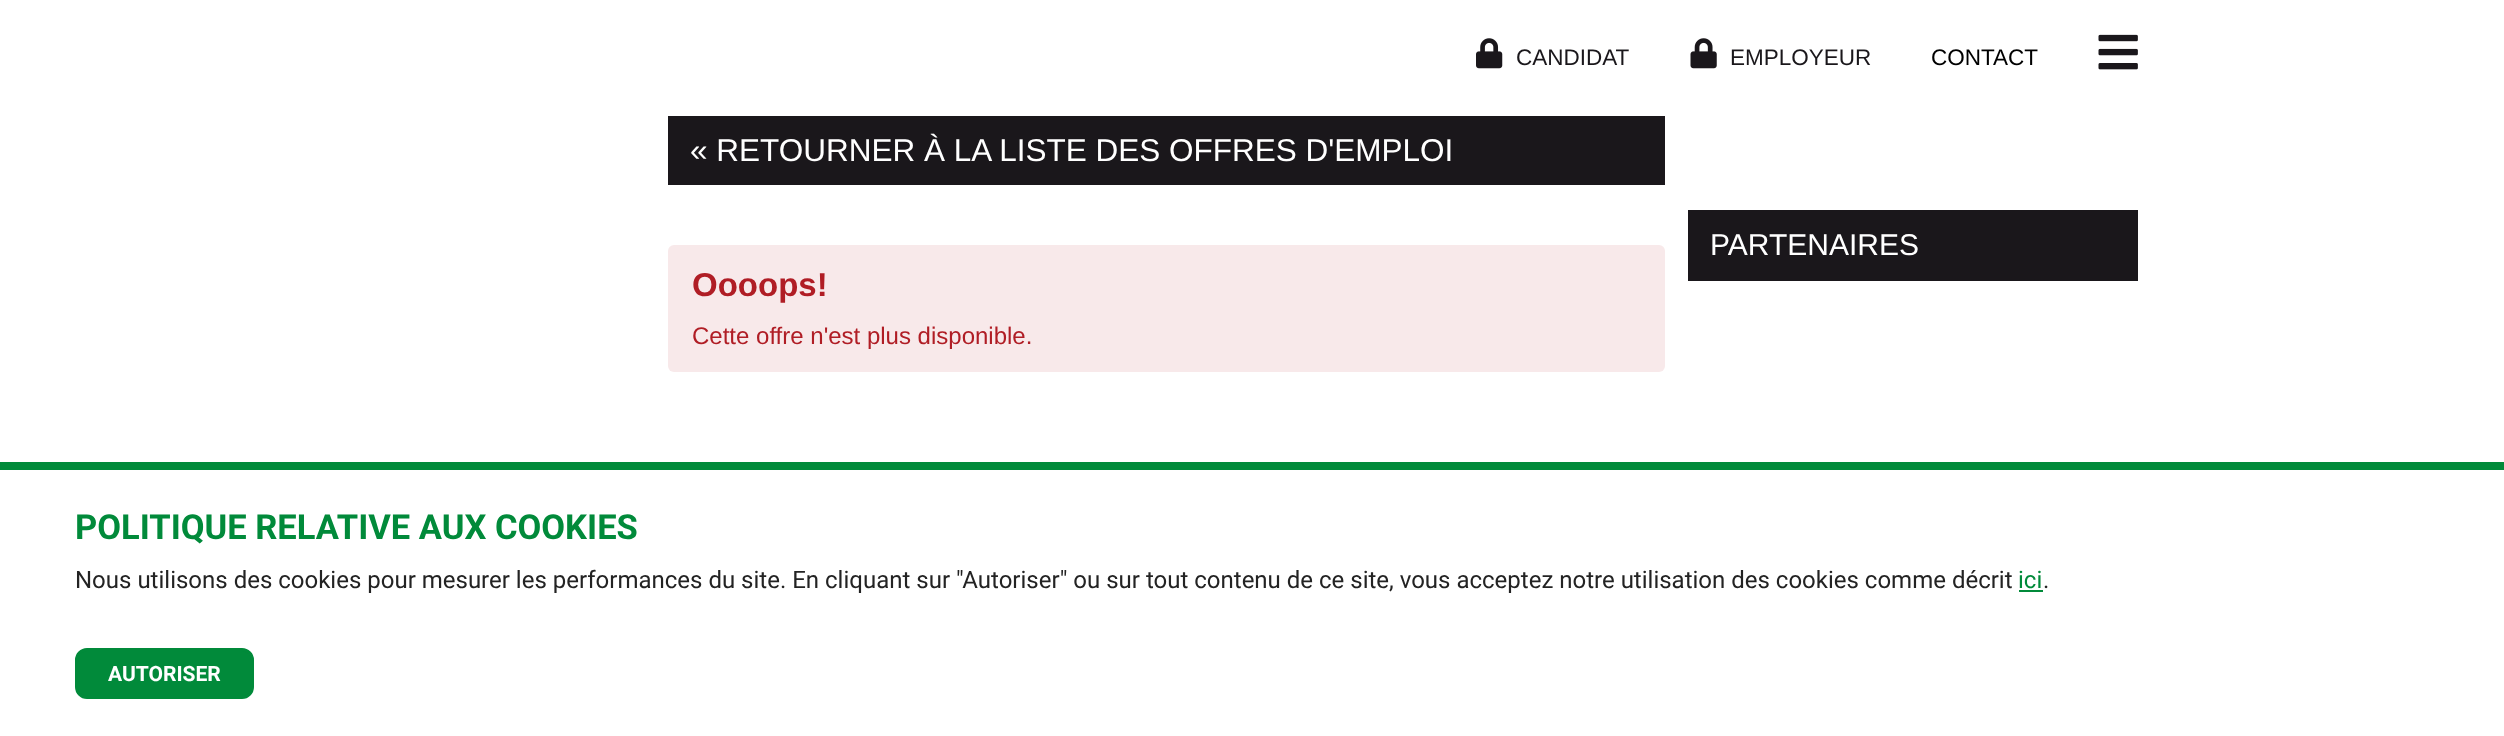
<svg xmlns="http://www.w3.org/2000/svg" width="2504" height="736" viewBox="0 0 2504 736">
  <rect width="100%" height="100%" fill="rgb(255,255,255)"/>
  <image x="1476" y="38" width="27" height="31" href="pic1.png"/>
  <text x="1516" y="65" font-family="Liberation Sans" font-size="22.5" fill="rgb(26,23,27)">CANDIDAT</text>
  <image x="1690" y="38" width="27" height="31" href="pic2.png"/>
  <text x="1730" y="65" font-family="Liberation Sans" font-size="22.5" fill="rgb(26,23,27)">EMPLOYEUR</text>
  <text x="1931" y="65" font-family="Liberation Sans" font-size="22.5" fill="rgb(0,0,0)">CONTACT</text>
  <image x="2098" y="34" width="40" height="36" href="pic3.png"/>
  <rect x="668" y="116" width="997" height="69" fill="rgb(26,23,27)"/>
  <text x="690" y="161" font-family="Liberation Sans" font-size="31.5" fill="rgb(255,255,255)">« RETOURNER À LA LISTE DES OFFRES D'EMPLOI</text>
  <rect x="668" y="245" width="997" height="127" rx="6" fill="rgb(248,233,234)"/>
  <text x="692" y="296" font-family="Liberation Sans" font-size="33" font-weight="bold" fill="rgb(176,29,37)">Oooops!</text>
  <text x="692" y="344" font-family="Liberation Sans" font-size="24" fill="rgb(176,29,37)">Cette offre n'est plus disponible.</text>
  <rect x="1688" y="210" width="450" height="71" fill="rgb(26,23,27)"/>
  <text x="1710" y="255" font-family="Liberation Sans" font-size="30" fill="rgb(255,255,255)">PARTENAIRES</text>
  <rect x="0" y="462" width="2504" height="8" fill="rgb(1,138,58)"/>
  <text x="75" y="539" font-family="Roboto" font-size="34.5" font-weight="bold" fill="rgb(1,138,58)">POLITIQUE RELATIVE AUX COOKIES</text>
  <text x="75" y="588" font-family="Roboto" font-size="24" fill="rgb(35,35,35)">Nous utilisons des cookies pour mesurer les performances du site. En cliquant sur "Autoriser" ou sur tout contenu de ce site, vous acceptez notre utilisation des cookies comme décrit</text>
  <text x="2018" y="588" font-family="Roboto" font-size="24" fill="rgb(1,138,58)">ici</text>
  <rect x="2019" y="590" width="24" height="2" fill="rgb(1,138,58)"/>
  <text x="2043" y="588" font-family="Roboto" font-size="24" fill="rgb(35,35,35)">.</text>
  <rect x="76.5" y="649.5" width="176" height="48" rx="10.5" fill="rgb(1,138,58)" stroke="rgb(1,138,58)" stroke-width="3"/>
  <text x="108" y="681" font-family="Roboto" font-size="21" font-weight="bold" fill="rgb(255,255,255)">AUTORISER</text>
</svg>
